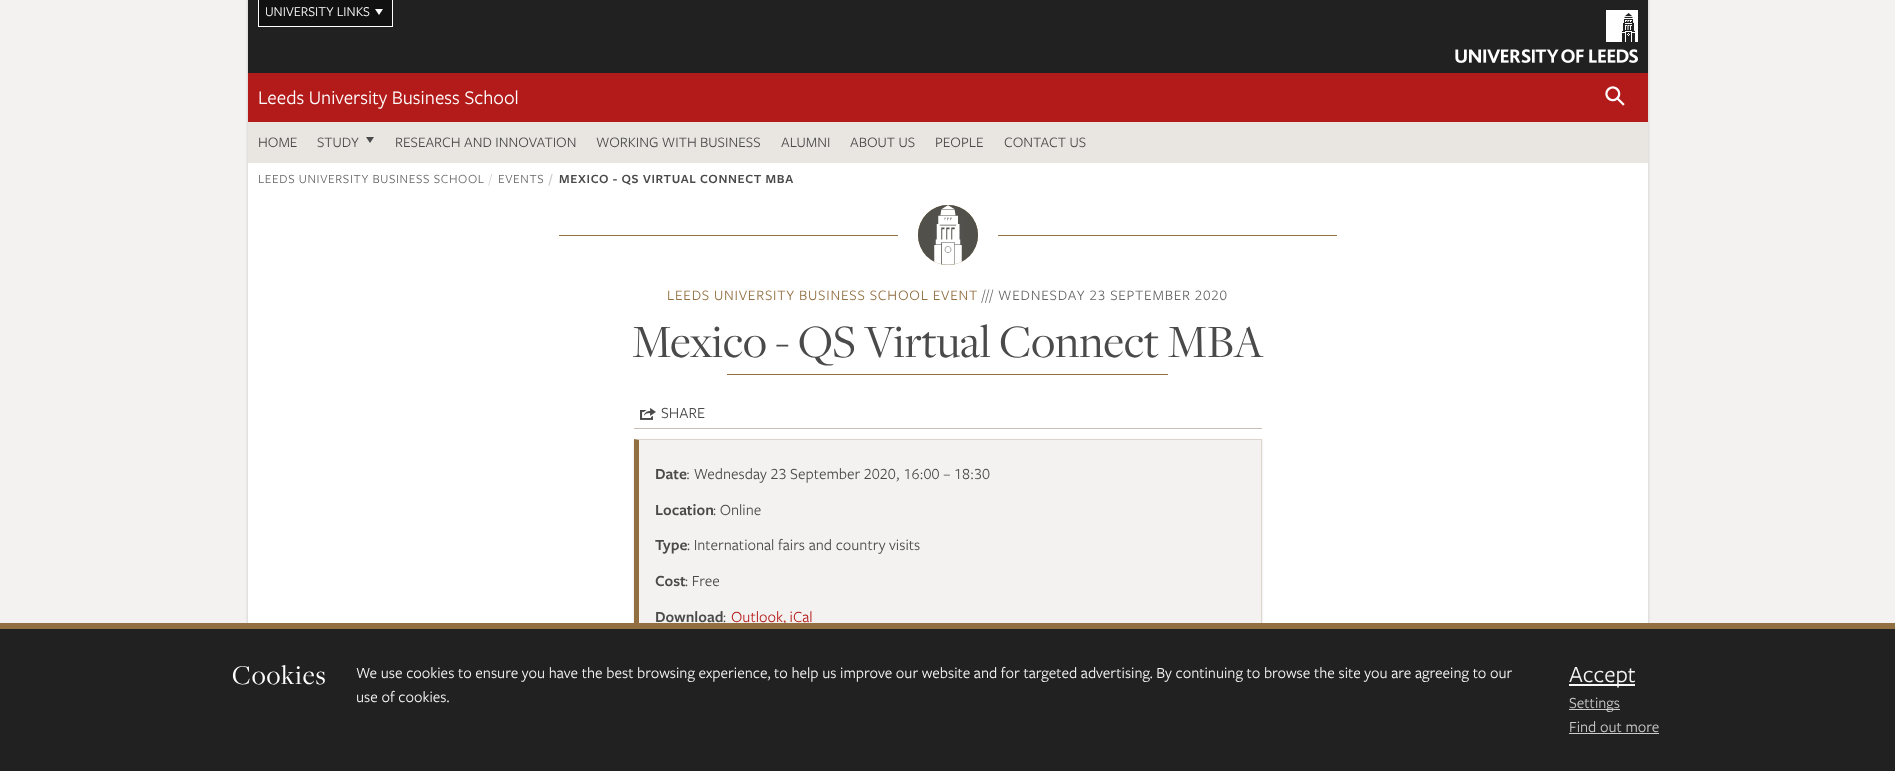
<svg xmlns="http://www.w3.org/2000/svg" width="1895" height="771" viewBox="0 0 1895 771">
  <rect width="100%" height="100%" fill="rgb(244,242,240)"/>
  <rect x="247" y="-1" width="1402" height="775" fill="rgba(0,0,0,0.1)" filter="blur(1px)"/>
  <rect x="248" y="163" width="1400" height="460" fill="rgb(255,255,255)"/>
  <rect x="248" y="0" width="1400" height="73" fill="rgb(33,33,33)"/>
  <image x="1455" y="10" width="183" height="53" href="pic1.png"/>
  <rect x="259" y="0" width="133" height="26" fill="rgb(17,17,17)"/>
  <rect x="392" y="0" width="1" height="27" fill="rgb(255,255,255)"/>
  <rect x="258" y="26" width="135" height="1" fill="rgb(255,255,255)"/>
  <rect x="258" y="0" width="1" height="27" fill="rgb(255,255,255)"/>
  <text x="265" y="16" font-family="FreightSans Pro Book" font-size="14" fill="rgb(255,255,255)">UNIVERSITY LINKS</text>
  <path d="M383 9L379 15L375 9Z" fill="rgb(255,255,255)"/>
  <rect x="248" y="73" width="1400" height="49" fill="rgb(179,27,27)"/>
  <text x="258" y="104" font-family="FreightSans Pro Book" font-size="20" fill="rgb(255,255,255)">Leeds University Business School</text>
  <image x="1605" y="86" width="20" height="20" href="pic2.png"/>
  <rect x="248" y="122" width="1400" height="41" fill="rgb(233,229,225)"/>
  <g font-family="FreightSans Pro Book" font-size="15" fill="rgb(74,74,74)">
    <text x="258" y="147">HOME</text>
    <text x="317" y="147">STUDY</text>
  </g>
  <path d="M374 137L370 143L366 137Z" fill="rgb(74,74,74)"/>
  <g font-family="FreightSans Pro Book" font-size="15" fill="rgb(74,74,74)">
    <text x="395" y="147">RESEARCH AND INNOVATION</text>
    <text x="596" y="147">WORKING WITH BUSINESS</text>
    <text x="781" y="147">ALUMNI</text>
    <text x="850" y="147">ABOUT US</text>
    <text x="935" y="147">PEOPLE</text>
    <text x="1004" y="147">CONTACT US</text>
  </g>
  <text x="258" y="183" font-family="FreightSans Pro Book" font-size="13" letter-spacing="0.65" fill="rgb(102,102,102)">LEEDS UNIVERSITY BUSINESS SCHOOL</text>
  <text x="489" y="183" font-family="FreightSans Pro Book" font-size="13" letter-spacing="0.65" fill="rgb(204,204,204)">/</text>
  <text x="498" y="183" font-family="FreightSans Pro Book" font-size="13" letter-spacing="0.65" fill="rgb(102,102,102)">EVENTS</text>
  <text x="549" y="183" font-family="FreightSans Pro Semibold" font-size="13" font-weight="600" letter-spacing="0.65" fill="rgb(204,204,204)">/</text>
  <text x="559" y="183" font-family="FreightSans Pro Semibold" font-size="13" font-weight="600" letter-spacing="0.65" fill="rgb(74,74,74)">MEXICO - QS VIRTUAL CONNECT MBA</text>
  <rect x="559" y="235" width="339" height="1" fill="rgb(145,111,64)"/>
  <circle cx="948" cy="235" r="30" fill="rgb(145,111,64)"/>
  <image x="918" y="205" width="60" height="60" href="pic3.png"/>
  <rect x="998" y="235" width="339" height="1" fill="rgb(145,111,64)"/>
  <text x="667" y="300" font-family="FreightSans Pro Book" font-size="15" letter-spacing="0.75" fill="rgb(145,111,64)">LEEDS UNIVERSITY BUSINESS SCHOOL EVENT</text>
  <text x="982" y="300" font-family="FreightSans Pro Book" font-size="15" letter-spacing="0.75" fill="rgb(102,102,102)">///</text>
  <text x="998" y="300" font-family="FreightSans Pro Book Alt" font-size="15" letter-spacing="0.75" fill="rgb(102,102,102)">WEDNESDAY 23 SEPTEMBER 2020</text>
  <text x="632" y="357" font-family="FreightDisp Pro" font-size="48" fill="rgb(74,74,74)">Mexico - QS Virtual Connect MBA</text>
  <rect x="727" y="374" width="441" height="1" fill="rgb(145,111,64)"/>
  <image x="640" y="408" width="16" height="12" href="pic4.png"/>
  <text x="661" y="418" font-family="FreightSans Pro Book" font-size="16" fill="rgb(74,74,74)">SHARE</text>
  <rect x="634" y="428" width="628" height="1" fill="rgb(201,191,181)"/>
  <rect x="634" y="440" width="628" height="212" fill="rgba(0,0,0,0.12)" filter="blur(1px)"/>
  <rect x="639" y="440" width="622" height="183" fill="rgb(244,242,240)"/>
  <path d="M634 439H1262L1261 440H639Z" fill="rgb(221,213,204)"/>
  <rect x="1261" y="439" width="1" height="184" fill="rgb(221,213,204)"/>
  <path d="M634 651V439L639 440V650Z" fill="rgb(145,111,64)"/>
  <text x="655" y="479" font-family="FreightSans Pro Semibold" font-size="16" font-weight="600" fill="rgb(74,74,74)">Date</text>
  <text x="686" y="479" font-family="FreightSans Pro Book Alt" font-size="16" fill="rgb(74,74,74)">: Wednesday 23 September 2020, 16:00 – 18:30</text>
  <text x="655" y="515" font-family="FreightSans Pro Semibold" font-size="16" font-weight="600" fill="rgb(74,74,74)">Location</text>
  <text x="713" y="515" font-family="FreightSans Pro Book" font-size="16" fill="rgb(74,74,74)">: Online</text>
  <text x="655" y="550" font-family="FreightSans Pro Semibold" font-size="16" font-weight="600" fill="rgb(74,74,74)">Type</text>
  <text x="687" y="550" font-family="FreightSans Pro Book" font-size="16" fill="rgb(74,74,74)">: International fairs and country visits</text>
  <text x="655" y="586" font-family="FreightSans Pro Semibold" font-size="16" font-weight="600" fill="rgb(74,74,74)">Cost</text>
  <text x="685" y="586" font-family="FreightSans Pro Book" font-size="16" fill="rgb(74,74,74)">: Free</text>
  <text x="655" y="622" font-family="FreightSans Pro Semibold" font-size="16" font-weight="600" fill="rgb(74,74,74)">Download</text>
  <text x="723" y="622" font-family="FreightSans Pro Book" font-size="16" fill="rgb(74,74,74)">:</text>
  <text x="731" y="622" font-family="FreightSans Pro Book" font-size="16" fill="rgb(179,27,27)">Outlook, iCal</text>
  <rect x="0" y="629" width="1895" height="142" fill="rgb(33,33,33)"/>
  <rect x="0" y="623" width="1895" height="6" fill="rgb(145,111,64)"/>
  <text x="232" y="684" font-family="FreightDisp Pro" font-size="28" letter-spacing="1" fill="rgb(255,255,255)">Cookies</text>
  <g font-family="FreightSans Pro Book" font-size="16" fill="rgb(247,247,247)">
    <text>
      <tspan x="356" y="678">We use cookies to ensure you have the best browsing experience, to help us improve our website and for targeted advertising. By continuing to browse the site you are agreeing to our</tspan>
      <tspan x="356" y="702">use of cookies.</tspan>
    </text>
  </g>
  <rect x="1569" y="684" width="66" height="2" fill="rgb(247,247,247)"/>
  <text x="1569" y="682" font-family="FreightSans Pro Book" font-size="24" fill="rgb(247,247,247)">Accept</text>
  <rect x="1569" y="709" width="51" height="1" fill="rgb(204,204,204)"/>
  <g font-family="FreightSans Pro Book" font-size="16" fill="rgb(204,204,204)">
    <text>
      <tspan x="1569" y="708">Settings</tspan>
      <tspan x="1569" y="732">Find out more</tspan>
    </text>
  </g>
  <rect x="1569" y="733" width="90" height="1" fill="rgb(204,204,204)"/>
</svg>
